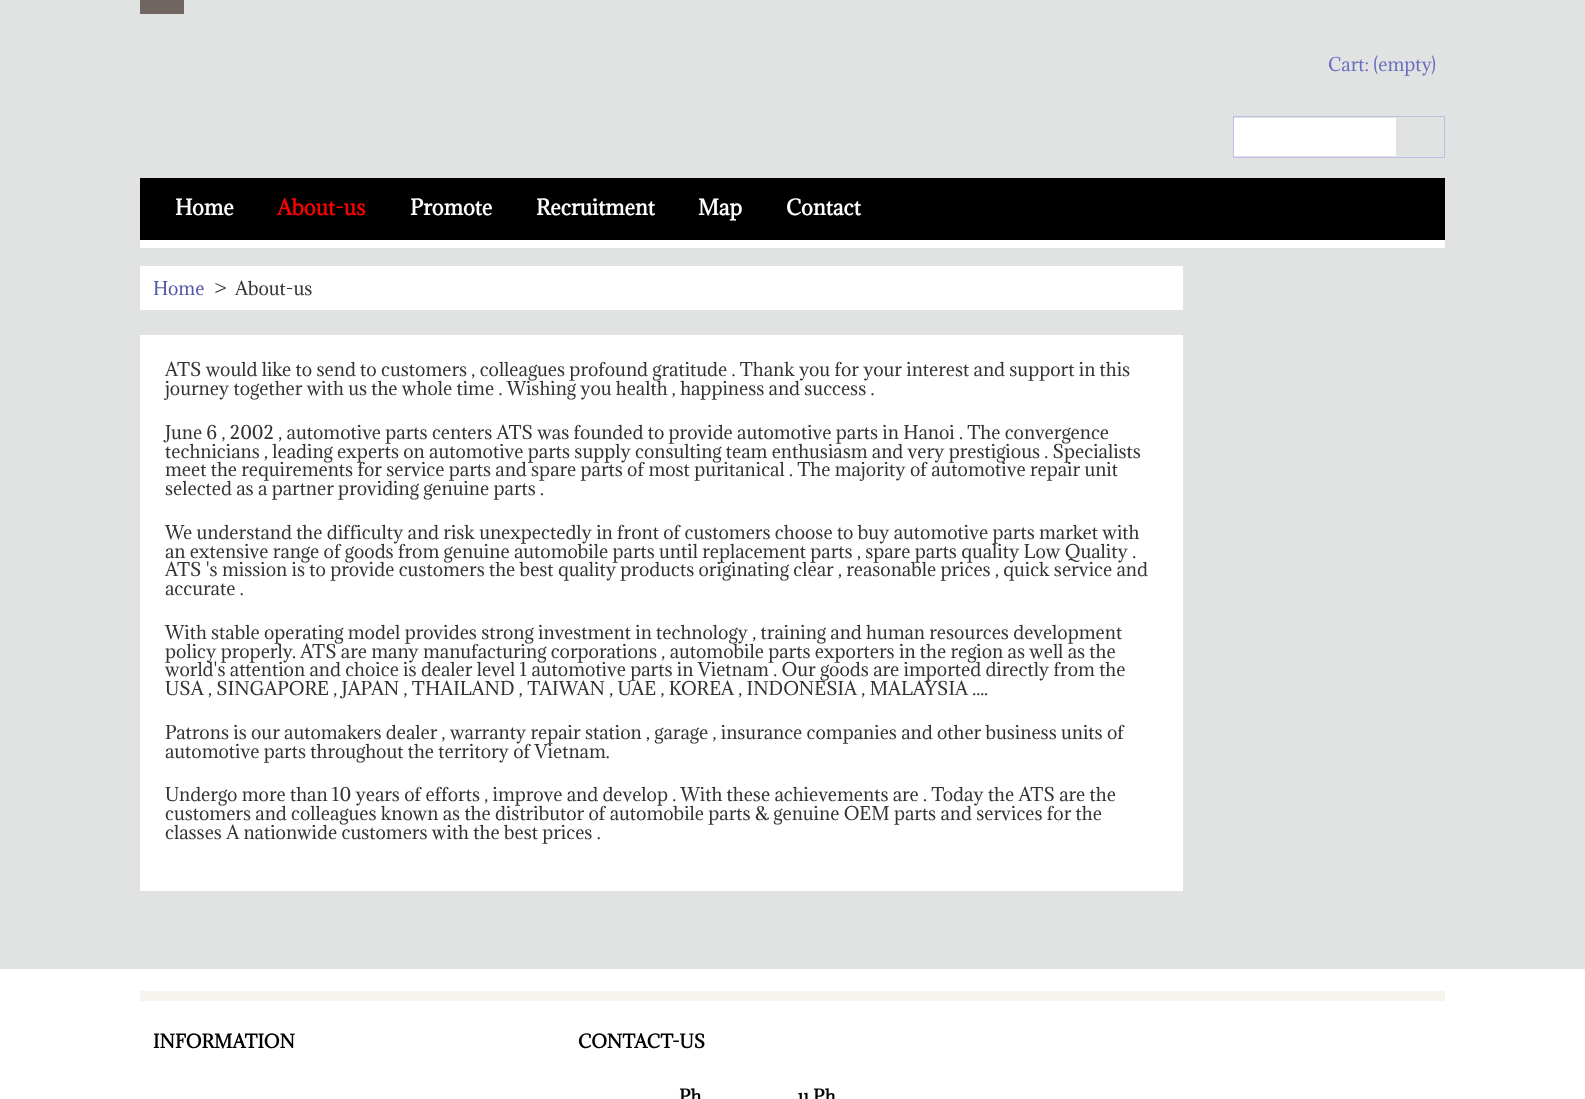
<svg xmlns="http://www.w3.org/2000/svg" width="1585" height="1099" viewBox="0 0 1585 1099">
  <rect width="100%" height="100%" fill="rgb(255,255,255)"/>
  <rect x="0" y="0" width="1585" height="969" fill="rgb(225,226,226)"/>
  <rect x="140" y="0" width="44" height="14" fill="rgb(113,101,98)"/>
  <text x="1328" y="71" font-family="Adamina" font-size="17.5" fill="rgb(106,110,193)">Cart: (empty)</text>
  <rect x="1233.5" y="116.5" width="211" height="41" fill="none" stroke="rgb(190,190,231)"/>
  <rect x="1234" y="118" width="162" height="38" fill="rgb(255,255,255)"/>
  <rect x="140" y="178" width="1305" height="62" fill="rgb(0,0,0)"/>
  <rect x="140" y="240" width="1305" height="8" fill="rgb(255,255,255)"/>
  <text x="175" y="215" font-family="Adamina" font-size="20" font-weight="bold" fill="rgb(255,255,255)">Home</text>
  <text x="277" y="215" font-family="Adamina" font-size="20" font-weight="bold" fill="rgb(255,0,0)">About-us</text>
  <g font-family="Adamina" font-size="20" font-weight="bold" fill="rgb(255,255,255)">
    <text x="410" y="215">Promote</text>
    <text x="536" y="215">Recruitment</text>
    <text x="698" y="215">Map</text>
    <text x="786" y="215">Contact</text>
  </g>
  <rect x="140" y="266" width="1043" height="44" fill="rgb(255,255,255)"/>
  <text x="153" y="295" font-family="Adamina" font-size="17.5" fill="rgb(83,85,170)">Home</text>
  <g font-family="Adamina" font-size="17.5" fill="rgb(51,51,51)">
    <text x="214" y="295">&gt;</text>
    <text x="235" y="295">About-us</text>
  </g>
  <rect x="140" y="335" width="1043" height="556" fill="rgb(255,255,255)"/>
  <g font-family="Adamina" font-size="17.5" fill="rgb(51,51,51)">
    <text>
      <tspan x="165" y="376">ATS would like to send to customers , colleagues profound gratitude . Thank you for your interest and support in this</tspan>
      <tspan x="165" y="395">journey together with us the whole time . Wishing you health , happiness and success .</tspan>
    </text>
    <text>
      <tspan x="165" y="439">June 6 , 2002 , automotive parts centers ATS was founded to provide automotive parts in Hanoi . The convergence</tspan>
      <tspan x="165" y="458">technicians , leading experts on automotive parts supply consulting team enthusiasm and very prestigious . Specialists</tspan>
      <tspan x="165" y="476">meet the requirements for service parts and spare parts of most puritanical . The majority of automotive repair unit</tspan>
      <tspan x="165" y="495">selected as a partner providing genuine parts .</tspan>
    </text>
    <text>
      <tspan x="165" y="539">We understand the difficulty and risk unexpectedly in front of customers choose to buy automotive parts market with</tspan>
      <tspan x="165" y="558">an extensive range of goods from genuine automobile parts until replacement parts , spare parts quality Low Quality .</tspan>
      <tspan x="165" y="576">ATS 's mission is to provide customers the best quality products originating clear , reasonable prices , quick service and</tspan>
      <tspan x="165" y="595">accurate .</tspan>
    </text>
    <text>
      <tspan x="165" y="639">With stable operating model provides strong investment in technology , training and human resources development</tspan>
      <tspan x="165" y="658">policy properly. ATS are many manufacturing corporations , automobile parts exporters in the region as well as the</tspan>
      <tspan x="165" y="676">world's attention and choice is dealer level 1 automotive parts in Vietnam . Our goods are imported directly from the</tspan>
      <tspan x="165" y="695">USA , SINGAPORE , JAPAN , THAILAND , TAIWAN , UAE , KOREA , INDONESIA , MALAYSIA ....</tspan>
    </text>
    <text>
      <tspan x="165" y="739">Patrons is our automakers dealer , warranty repair station , garage , insurance companies and other business units of</tspan>
      <tspan x="165" y="758">automotive parts throughout the territory of Vietnam.</tspan>
    </text>
    <text>
      <tspan x="165" y="801">Undergo more than 10 years of efforts , improve and develop . With these achievements are . Today the ATS are the</tspan>
      <tspan x="165" y="820">customers and colleagues known as the distributor of automobile parts &amp; genuine OEM parts and services for the</tspan>
      <tspan x="165" y="839">classes A nationwide customers with the best prices .</tspan>
    </text>
  </g>
  <rect x="140" y="991" width="1305" height="10" fill="rgb(246,244,239)"/>
  <g font-family="Adamina" font-size="17.5" font-weight="bold" fill="rgb(0,0,0)">
    <text x="153" y="1048">INFORMATION</text>
    <text x="578" y="1048">CONTACT-US</text>
    <text x="679" y="1103">Ph</text>
    <text x="798" y="1103">u Ph</text>
  </g>
</svg>
